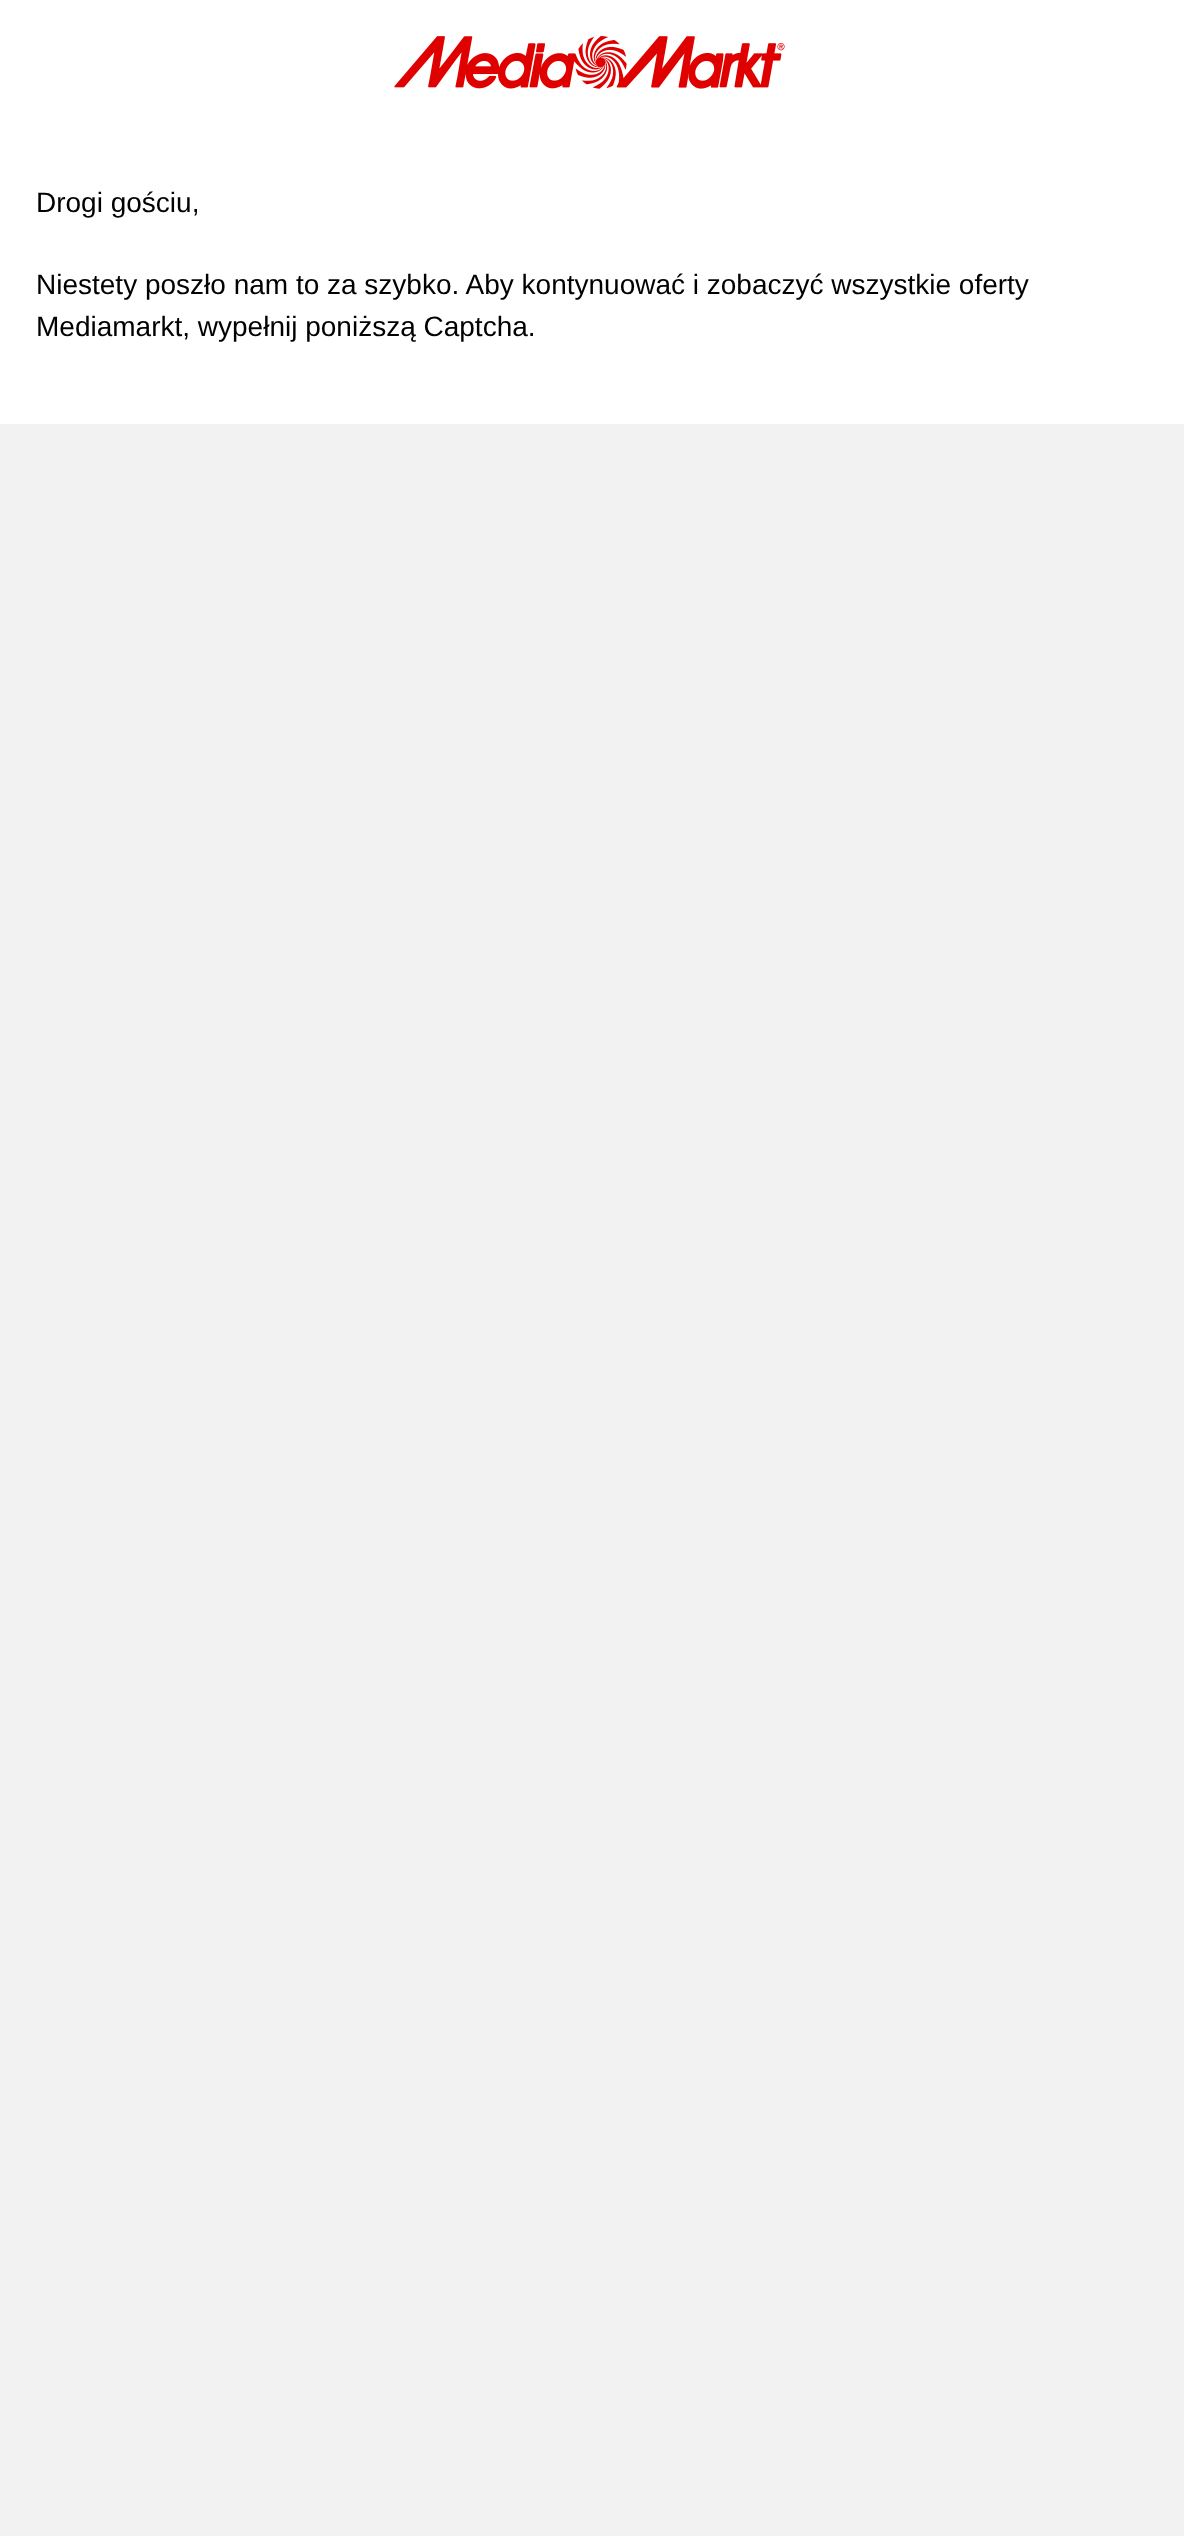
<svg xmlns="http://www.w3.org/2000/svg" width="1184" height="2536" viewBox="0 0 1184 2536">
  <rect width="100%" height="100%" fill="rgb(242,242,242)"/>
  <rect x="0" y="0" width="1184" height="424" fill="rgb(255,255,255)"/>
  <image x="394" y="36" width="391" height="53" href="pic1.png"/>
  <g font-family="Liberation Sans" font-size="28" fill="rgb(0,0,0)">
    <text x="36" y="212">Drogi gościu,</text>
    <text>
      <tspan x="36" y="294">Niestety poszło nam to za szybko. Aby kontynuować i zobaczyć wszystkie oferty</tspan>
      <tspan x="36" y="336">Mediamarkt, wypełnij poniższą Captcha.</tspan>
    </text>
  </g>
</svg>
